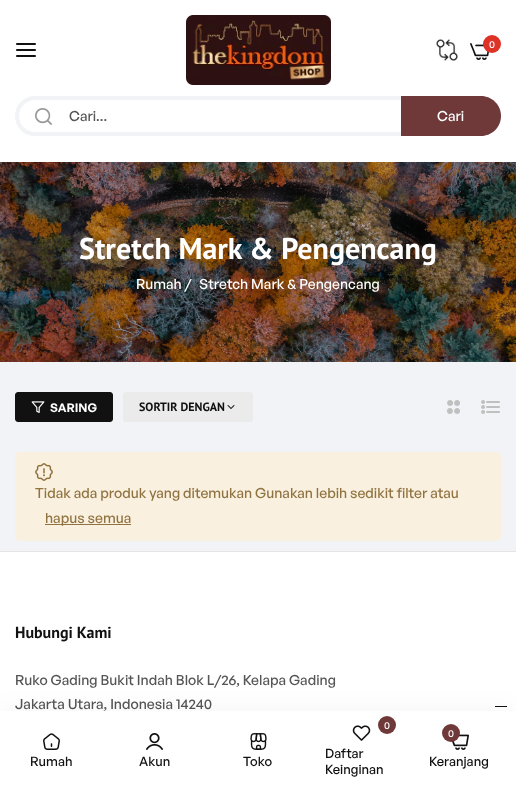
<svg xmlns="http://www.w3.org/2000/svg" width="516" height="791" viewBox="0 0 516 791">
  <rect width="100%" height="100%" fill="rgb(241,243,247)"/>
  <rect x="0" y="0" width="516" height="162" fill="rgb(255,255,255)"/>
  <image x="16" y="43" width="20" height="14" href="pic1.png"/>
  <image x="186" y="15" width="145" height="70" href="pic2.png"/>
  <image x="436" y="39" width="22" height="22" href="pic3.png"/>
  <image x="470" y="43" width="19" height="17" href="pic4.png"/>
  <circle cx="492" cy="44" r="9" fill="rgb(221,51,39)"/>
  <text x="489" y="48" font-family="General Sans" font-size="10" font-weight="500" fill="rgb(255,255,255)">0</text>
  <rect x="17" y="98" width="482" height="36" rx="18" fill="none" stroke="rgb(241,243,247)" stroke-width="4"/>
  <image x="35" y="108" width="17" height="17" href="pic5.png"/>
  <text x="69" y="121" font-family="General Sans" font-size="14" font-weight="500" fill="rgb(85,85,85)">Cari...</text>
  <path d="M401 96H481C492 96 501 105 501 116C501 127 492 136 481 136H401Z" fill="rgb(111,57,57)"/>
  <text x="437" y="121" font-family="General Sans" font-size="14" font-weight="500" fill="rgb(255,255,255)">Cari</text>
  <image x="0" y="162" width="516" height="200" href="pic6.png"/>
  <text x="79" y="259" font-family="PT Sans" font-size="30" font-weight="bold" fill="rgb(255,255,255)">Stretch Mark &amp; Pengencang</text>
  <g font-family="General Sans" font-size="14" font-weight="500" fill="rgb(255,255,255)">
    <text x="136" y="289">Rumah /</text>
    <text x="199" y="289">Stretch Mark &amp; Pengencang</text>
  </g>
  <rect x="15.5" y="392.5" width="97" height="29" rx="2.5" fill="rgb(17,17,17)" stroke="rgb(17,17,17)"/>
  <image x="31" y="401" width="14" height="12" href="pic7.png"/>
  <text x="50" y="412" font-family="General Sans" font-size="12" font-weight="600" fill="rgb(255,255,255)">SARING</text>
  <rect x="123.5" y="392.5" width="129" height="29" rx="2.5" fill="rgb(235,235,235)" stroke="rgb(235,235,235)"/>
  <text x="139" y="411" font-family="PT Sans" font-size="12" font-weight="bold" fill="rgb(17,17,17)">SORTIR DENGAN</text>
  <image x="227" y="405" width="8" height="4" href="pic8.png"/>
  <image x="447" y="400" width="13" height="14" href="pic9.png"/>
  <image x="481" y="400" width="19" height="14" href="pic10.png"/>
  <rect x="15" y="452" width="486" height="89" rx="5" fill="rgb(250,240,223)"/>
  <image x="35" y="463" width="18" height="18" href="pic11.png"/>
  <text x="35" y="498" font-family="General Sans" font-size="14" font-weight="500" fill="rgb(144,115,65)">Tidak ada produk yang ditemukan Gunakan lebih sedikit filter atau</text>
  <rect x="45" y="524" width="86" height="1" fill="rgb(144,115,65)"/>
  <text x="45" y="523" font-family="General Sans" font-size="14" font-weight="500" fill="rgb(144,115,65)">hapus semua</text>
  <rect x="0" y="552" width="516" height="159" fill="rgb(255,255,255)"/>
  <rect x="0" y="551" width="516" height="1" fill="rgb(229,227,227)"/>
  <text x="15" y="638" font-family="PT Sans" font-size="16" font-weight="bold" fill="rgb(17,17,17)">Hubungi Kami</text>
  <g font-family="General Sans" font-size="14" font-weight="500" fill="rgb(85,85,85)">
    <text>
      <tspan x="15" y="685">Ruko Gading Bukit Indah Blok L/26, Kelapa Gading</tspan>
      <tspan x="15" y="709">Jakarta Utara, Indonesia 14240</tspan>
    </text>
  </g>
  <rect x="495" y="706" width="12" height="1" fill="rgb(17,17,17)"/>
  <rect x="0" y="716" width="516" height="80" fill="rgba(0,0,0,0.06)" filter="blur(15px)"/>
  <rect x="0" y="711" width="516" height="80" fill="rgb(255,255,255)"/>
  <image x="43" y="733" width="17" height="17" href="pic12.png"/>
  <text x="30" y="766" font-family="General Sans" font-size="13" font-weight="500" fill="rgb(17,17,17)">Rumah</text>
  <image x="146" y="733" width="17" height="17" href="pic13.png"/>
  <text x="139" y="766" font-family="General Sans" font-size="13" font-weight="500" fill="rgb(17,17,17)">Akun</text>
  <image x="250" y="733" width="17" height="17" href="pic14.png"/>
  <text x="243" y="766" font-family="General Sans" font-size="13" font-weight="500" fill="rgb(17,17,17)">Toko</text>
  <image x="352" y="725" width="19" height="16" href="pic15.png"/>
  <circle cx="387" cy="725" r="9" fill="rgb(111,57,57)"/>
  <text x="384" y="729" font-family="General Sans" font-size="10" font-weight="500" fill="rgb(255,255,255)">0</text>
  <g font-family="General Sans" font-size="13" font-weight="500" fill="rgb(17,17,17)">
    <text>
      <tspan x="325" y="758">Daftar</tspan>
      <tspan x="325" y="774">Keinginan</tspan>
    </text>
  </g>
  <image x="451" y="734" width="18" height="16" href="pic16.png"/>
  <circle cx="451" cy="733" r="9" fill="rgb(111,57,57)"/>
  <text x="448" y="737" font-family="General Sans" font-size="10" font-weight="500" fill="rgb(255,255,255)">0</text>
  <text x="429" y="766" font-family="General Sans" font-size="13" font-weight="500" fill="rgb(17,17,17)">Keranjang</text>
</svg>
